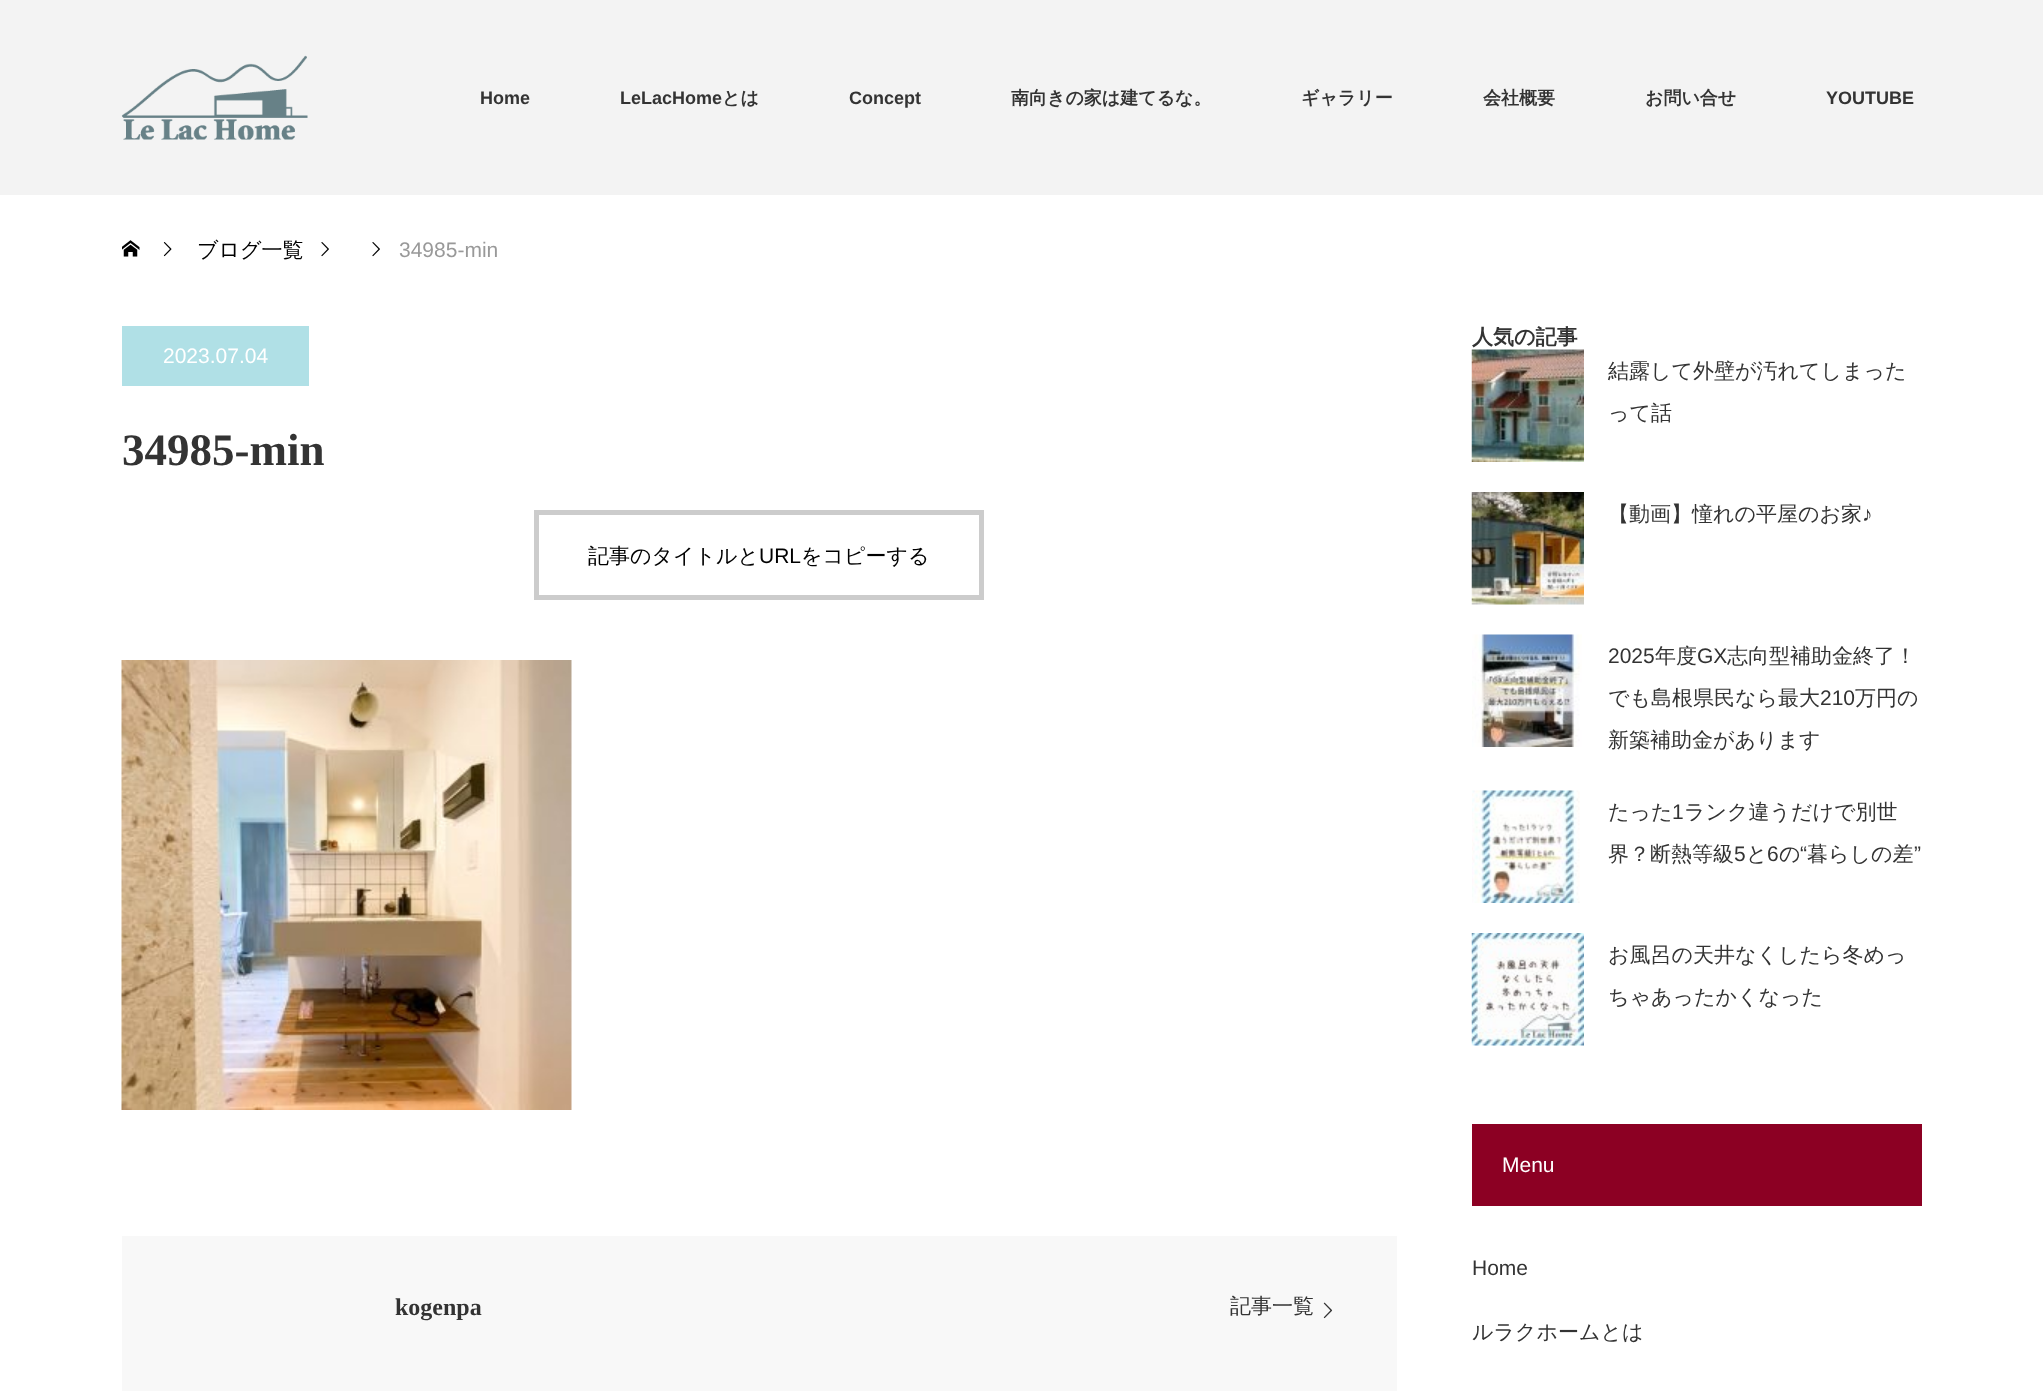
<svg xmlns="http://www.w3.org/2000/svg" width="2043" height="1391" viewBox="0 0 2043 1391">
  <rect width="100%" height="100%" fill="rgb(255,255,255)"/>
  <rect x="0" y="0" width="2043" height="195" fill="rgb(243,243,243)"/>
  <image x="121" y="55" width="187" height="85" href="pic1.png"/>
  <g font-family="Liberation Sans" font-size="18" font-weight="bold" fill="rgb(51,51,51)">
    <text x="480" y="104">Home</text>
    <text x="620" y="104">LeLacHome</text>
  </g>
  <text x="722" y="104" font-family="WenQuanYi Zen Hei" font-size="18" font-weight="bold" fill="rgb(51,51,51)">とは</text>
  <text x="849" y="104" font-family="Liberation Sans" font-size="18" font-weight="bold" fill="rgb(51,51,51)">Concept</text>
  <g font-family="WenQuanYi Zen Hei" font-size="18" font-weight="bold" fill="rgb(51,51,51)">
    <text x="1011" y="104">南向きの家は建てるな。</text>
    <text x="1301" y="104">ギャラリー</text>
    <text x="1483" y="104">会社概要</text>
    <text x="1645" y="104">お問い合せ</text>
  </g>
  <text x="1826" y="104" font-family="Liberation Sans" font-size="18" font-weight="bold" fill="rgb(51,51,51)">YOUTUBE</text>
  <image x="122" y="240" width="18" height="17" href="pic2.png"/>
  <image x="163" y="242" width="9" height="15" href="pic3.png"/>
  <text x="197" y="257" font-family="WenQuanYi Zen Hei" font-size="21" font-weight="500" fill="rgb(0,0,0)">ブログ一覧</text>
  <image x="321" y="242" width="8" height="15" href="pic4.png"/>
  <image x="372" y="242" width="8" height="15" href="pic4.png"/>
  <text x="399" y="257" font-family="Liberation Sans" font-size="21" fill="rgb(153,153,153)">34985-min</text>
  <rect x="122" y="326" width="187" height="60" fill="rgb(176,224,230)"/>
  <text x="163" y="363" font-family="Liberation Sans" font-size="21" fill="rgb(255,255,255)">2023.07.04</text>
  <text x="122" y="465" font-family="Liberation Serif" font-size="45" font-weight="bold" fill="rgb(51,51,51)">34985-min</text>
  <rect x="536.5" y="512.5" width="445" height="85" fill="none" stroke="rgb(204,204,204)" stroke-width="5"/>
  <text x="588" y="563" font-family="WenQuanYi Zen Hei" font-size="21" font-weight="500" fill="rgb(0,0,0)">記事のタイトルと</text>
  <text x="759" y="563" font-family="Liberation Sans" font-size="21" fill="rgb(0,0,0)">URL</text>
  <text x="801" y="563" font-family="WenQuanYi Zen Hei" font-size="21" font-weight="500" fill="rgb(0,0,0)">をコピーする</text>
  <image x="121" y="660" width="451" height="450" href="pic5.png"/>
  <rect x="122" y="1236" width="1275" height="155" fill="rgb(248,248,248)"/>
  <text x="395" y="1315" font-family="Liberation Serif" font-size="24" font-weight="bold" fill="rgb(51,51,51)">kogenpa</text>
  <text x="1230" y="1313" font-family="WenQuanYi Zen Hei" font-size="21" font-weight="500" fill="rgb(51,51,51)">記事一覧</text>
  <image x="1323" y="1302" width="10" height="17" href="pic6.png"/>
  <text x="1472" y="344" font-family="WenQuanYi Zen Hei" font-size="21" font-weight="bold" fill="rgb(51,51,51)">人気の記事</text>
  <image x="1471" y="349" width="113" height="113" href="pic7.png"/>
  <g font-family="WenQuanYi Zen Hei" font-size="21" font-weight="500" fill="rgb(51,51,51)">
    <text x="1608" y="378">結露して外壁が汚れてしまった</text>
    <text x="1608" y="420">って話</text>
  </g>
  <image x="1471" y="492" width="113" height="113" href="pic8.png"/>
  <text x="1608" y="521" font-family="WenQuanYi Zen Hei" font-size="21" font-weight="500" fill="rgb(51,51,51)">【動画】憧れの平屋のお家</text>
  <text x="1862" y="521" font-family="Liberation Sans" font-size="21" fill="rgb(51,51,51)">♪</text>
  <image x="1472" y="634" width="110" height="113" href="pic9.png"/>
  <text x="1608" y="663" font-family="Liberation Sans" font-size="21" fill="rgb(51,51,51)">2025</text>
  <text x="1655" y="663" font-family="WenQuanYi Zen Hei" font-size="21" font-weight="500" fill="rgb(51,51,51)">年度</text>
  <text x="1697" y="663" font-family="Liberation Sans" font-size="21" fill="rgb(51,51,51)">GX</text>
  <g font-family="WenQuanYi Zen Hei" font-size="21" font-weight="500" fill="rgb(51,51,51)">
    <text x="1727" y="663">志向型補助金終了！</text>
    <text x="1608" y="705">でも島根県民なら最大</text>
  </g>
  <text x="1820" y="705" font-family="Liberation Sans" font-size="21" fill="rgb(51,51,51)">210</text>
  <g font-family="WenQuanYi Zen Hei" font-size="21" font-weight="500" fill="rgb(51,51,51)">
    <text x="1855" y="705">万円の</text>
    <text x="1608" y="747">新築補助金があります</text>
  </g>
  <image x="1472" y="790" width="108" height="113" href="pic10.png"/>
  <text x="1608" y="819" font-family="WenQuanYi Zen Hei" font-size="21" font-weight="500" fill="rgb(51,51,51)">たった</text>
  <text x="1672" y="819" font-family="Liberation Sans" font-size="21" fill="rgb(51,51,51)">1</text>
  <g font-family="WenQuanYi Zen Hei" font-size="21" font-weight="500" fill="rgb(51,51,51)">
    <text x="1684" y="819">ランク違うだけで別世</text>
    <text x="1608" y="861">界？断熱等級</text>
  </g>
  <text x="1734" y="861" font-family="Liberation Sans" font-size="21" fill="rgb(51,51,51)">5</text>
  <text x="1746" y="861" font-family="WenQuanYi Zen Hei" font-size="21" font-weight="500" fill="rgb(51,51,51)">と</text>
  <text x="1767" y="861" font-family="Liberation Sans" font-size="21" fill="rgb(51,51,51)">6</text>
  <text x="1779" y="861" font-family="WenQuanYi Zen Hei" font-size="21" font-weight="500" fill="rgb(51,51,51)">の</text>
  <text x="1800" y="861" font-family="Liberation Sans" font-size="21" fill="rgb(51,51,51)">“</text>
  <text x="1807" y="861" font-family="WenQuanYi Zen Hei" font-size="21" font-weight="500" fill="rgb(51,51,51)">暮らしの差</text>
  <text x="1914" y="861" font-family="Liberation Sans" font-size="21" fill="rgb(51,51,51)">”</text>
  <image x="1471" y="933" width="113" height="113" href="pic11.png"/>
  <g font-family="WenQuanYi Zen Hei" font-size="21" font-weight="500" fill="rgb(51,51,51)">
    <text x="1608" y="962">お風呂の天井なくしたら冬めっ</text>
    <text x="1608" y="1004">ちゃあったかくなった</text>
  </g>
  <rect x="1472" y="1124" width="450" height="82" fill="rgb(140,0,35)"/>
  <text x="1502" y="1172" font-family="Liberation Sans" font-size="21" fill="rgb(255,255,255)">Menu</text>
  <text x="1472" y="1275" font-family="Liberation Sans" font-size="21" fill="rgb(51,51,51)">Home</text>
  <text x="1472" y="1339" font-family="WenQuanYi Zen Hei" font-size="21" font-weight="500" fill="rgb(51,51,51)">ルラクホームとは</text>
</svg>
